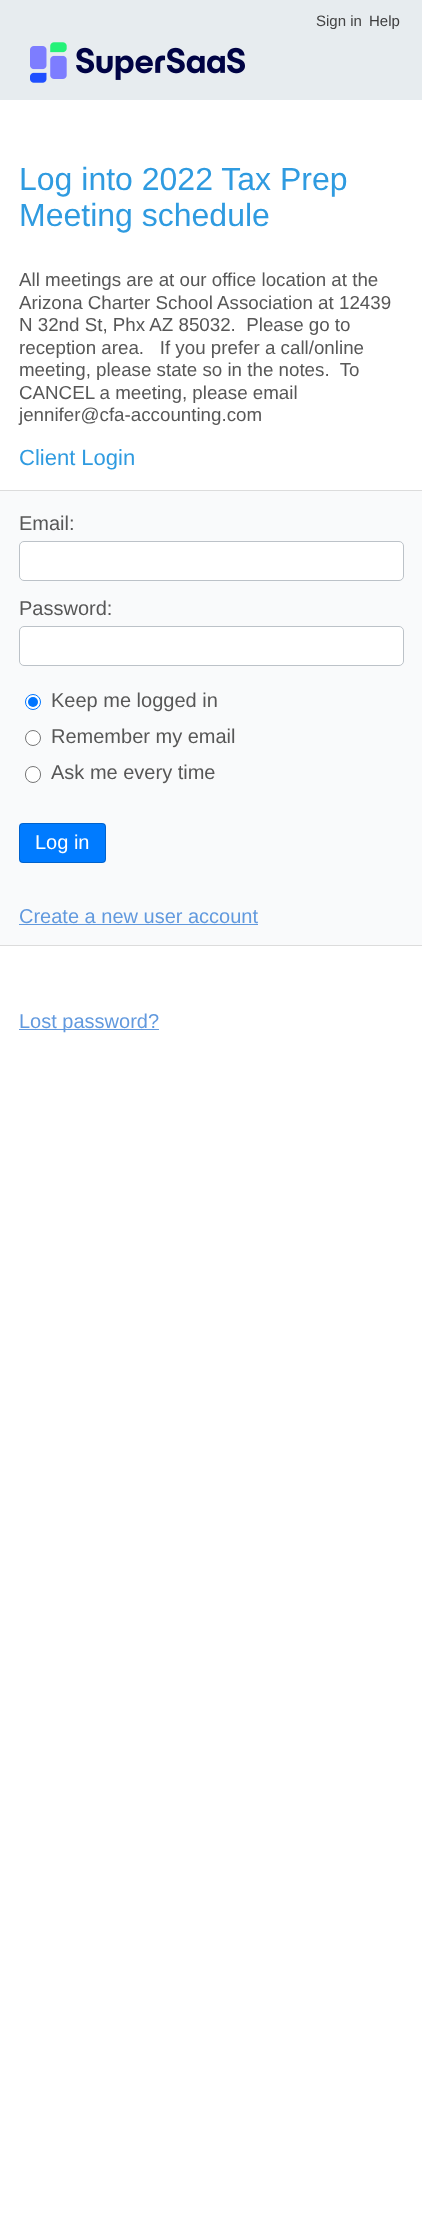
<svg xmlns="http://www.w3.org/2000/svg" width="422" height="2222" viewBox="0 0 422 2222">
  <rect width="100%" height="100%" fill="rgb(255,255,255)"/>
  <rect x="0" y="0" width="422" height="100" fill="rgb(231,236,239)"/>
  <text x="316" y="26" font-family="Liberation Sans" font-size="15" fill="rgb(68,68,68)">Sign in</text>
  <text x="369" y="26" font-family="Liberation Sans" font-size="15" fill="rgb(60,60,61)">Help</text>
  <image x="30" y="42" width="215" height="41" href="pic1.png"/>
  <g font-family="Liberation Sans" font-size="32" fill="rgb(47,155,224)">
    <text>
      <tspan x="19" y="190">Log into 2022 Tax Prep</tspan>
      <tspan x="19" y="226">Meeting schedule</tspan>
    </text>
  </g>
  <g font-family="Liberation Sans" font-size="18.75" fill="rgb(87,87,87)">
    <text xml:space="preserve"><tspan x="19" y="286">All meetings are at our office location at the</tspan><tspan x="19" y="309">Arizona Charter School Association at 12439</tspan><tspan x="19" y="331">N 32nd St, Phx AZ 85032.  Please go to</tspan><tspan x="19" y="354">reception area.   If you prefer a call/online</tspan><tspan x="19" y="376">meeting, please state so in the notes.  To</tspan><tspan x="19" y="399">CANCEL a meeting, please email</tspan><tspan x="19" y="421">jennifer@cfa-accounting.com</tspan></text>
  </g>
  <text x="19" y="465" font-family="Liberation Sans" font-size="22" fill="rgb(47,155,224)">Client Login</text>
  <rect x="0" y="491" width="422" height="454" fill="rgb(249,250,251)"/>
  <rect x="0" y="490" width="422" height="1" fill="rgb(220,220,220)"/>
  <rect x="0" y="945" width="422" height="1" fill="rgb(220,220,220)"/>
  <text x="19" y="530" font-family="Liberation Sans" font-size="20" fill="rgb(87,87,87)">Email:</text>
  <rect x="19.5" y="541.5" width="384" height="39" rx="4.5" fill="rgb(255,255,255)" stroke="rgb(188,194,200)"/>
  <text x="19" y="615" font-family="Liberation Sans" font-size="20" fill="rgb(87,87,87)">Password:</text>
  <rect x="19.5" y="626.5" width="384" height="39" rx="4.5" fill="rgb(255,255,255)" stroke="rgb(188,194,200)"/>
  <circle cx="33" cy="702" r="7.5" fill="rgb(255,255,255)" stroke="rgb(0,117,255)"/>
  <circle cx="33" cy="702" r="5" fill="rgb(0,117,255)"/>
  <text x="51" y="707" font-family="Liberation Sans" font-size="20" fill="rgb(87,87,87)">Keep me logged in</text>
  <circle cx="33" cy="738" r="7.5" fill="rgb(255,255,255)" stroke="rgb(118,118,118)"/>
  <text x="51" y="743" font-family="Liberation Sans" font-size="20" fill="rgb(87,87,87)">Remember my email</text>
  <rect x="25.5" y="766.5" width="15" height="16" rx="7.5" fill="rgb(255,255,255)" stroke="rgb(118,118,118)"/>
  <text x="51" y="779" font-family="Liberation Sans" font-size="20" fill="rgb(87,87,87)">Ask me every time</text>
  <rect x="19" y="823" width="87" height="40" rx="4" fill="rgb(0,123,255)"/>
  <rect x="19.5" y="823.5" width="86" height="39" rx="3.5" fill="none" stroke="rgba(0,0,0,0.2)"/>
  <text x="35" y="849" font-family="Liberation Sans" font-size="20" fill="rgb(255,255,255)">Log in</text>
  <text x="19" y="923" font-family="Liberation Sans" font-size="20" fill="rgb(97,153,222)">Create a new user account</text>
  <rect x="19" y="924" width="239" height="1" fill="rgb(97,153,222)"/>
  <rect x="19" y="1029" width="140" height="1" fill="rgb(97,153,222)"/>
  <text x="19" y="1028" font-family="Liberation Sans" font-size="20" fill="rgb(97,153,222)">Lost password?</text>
</svg>
